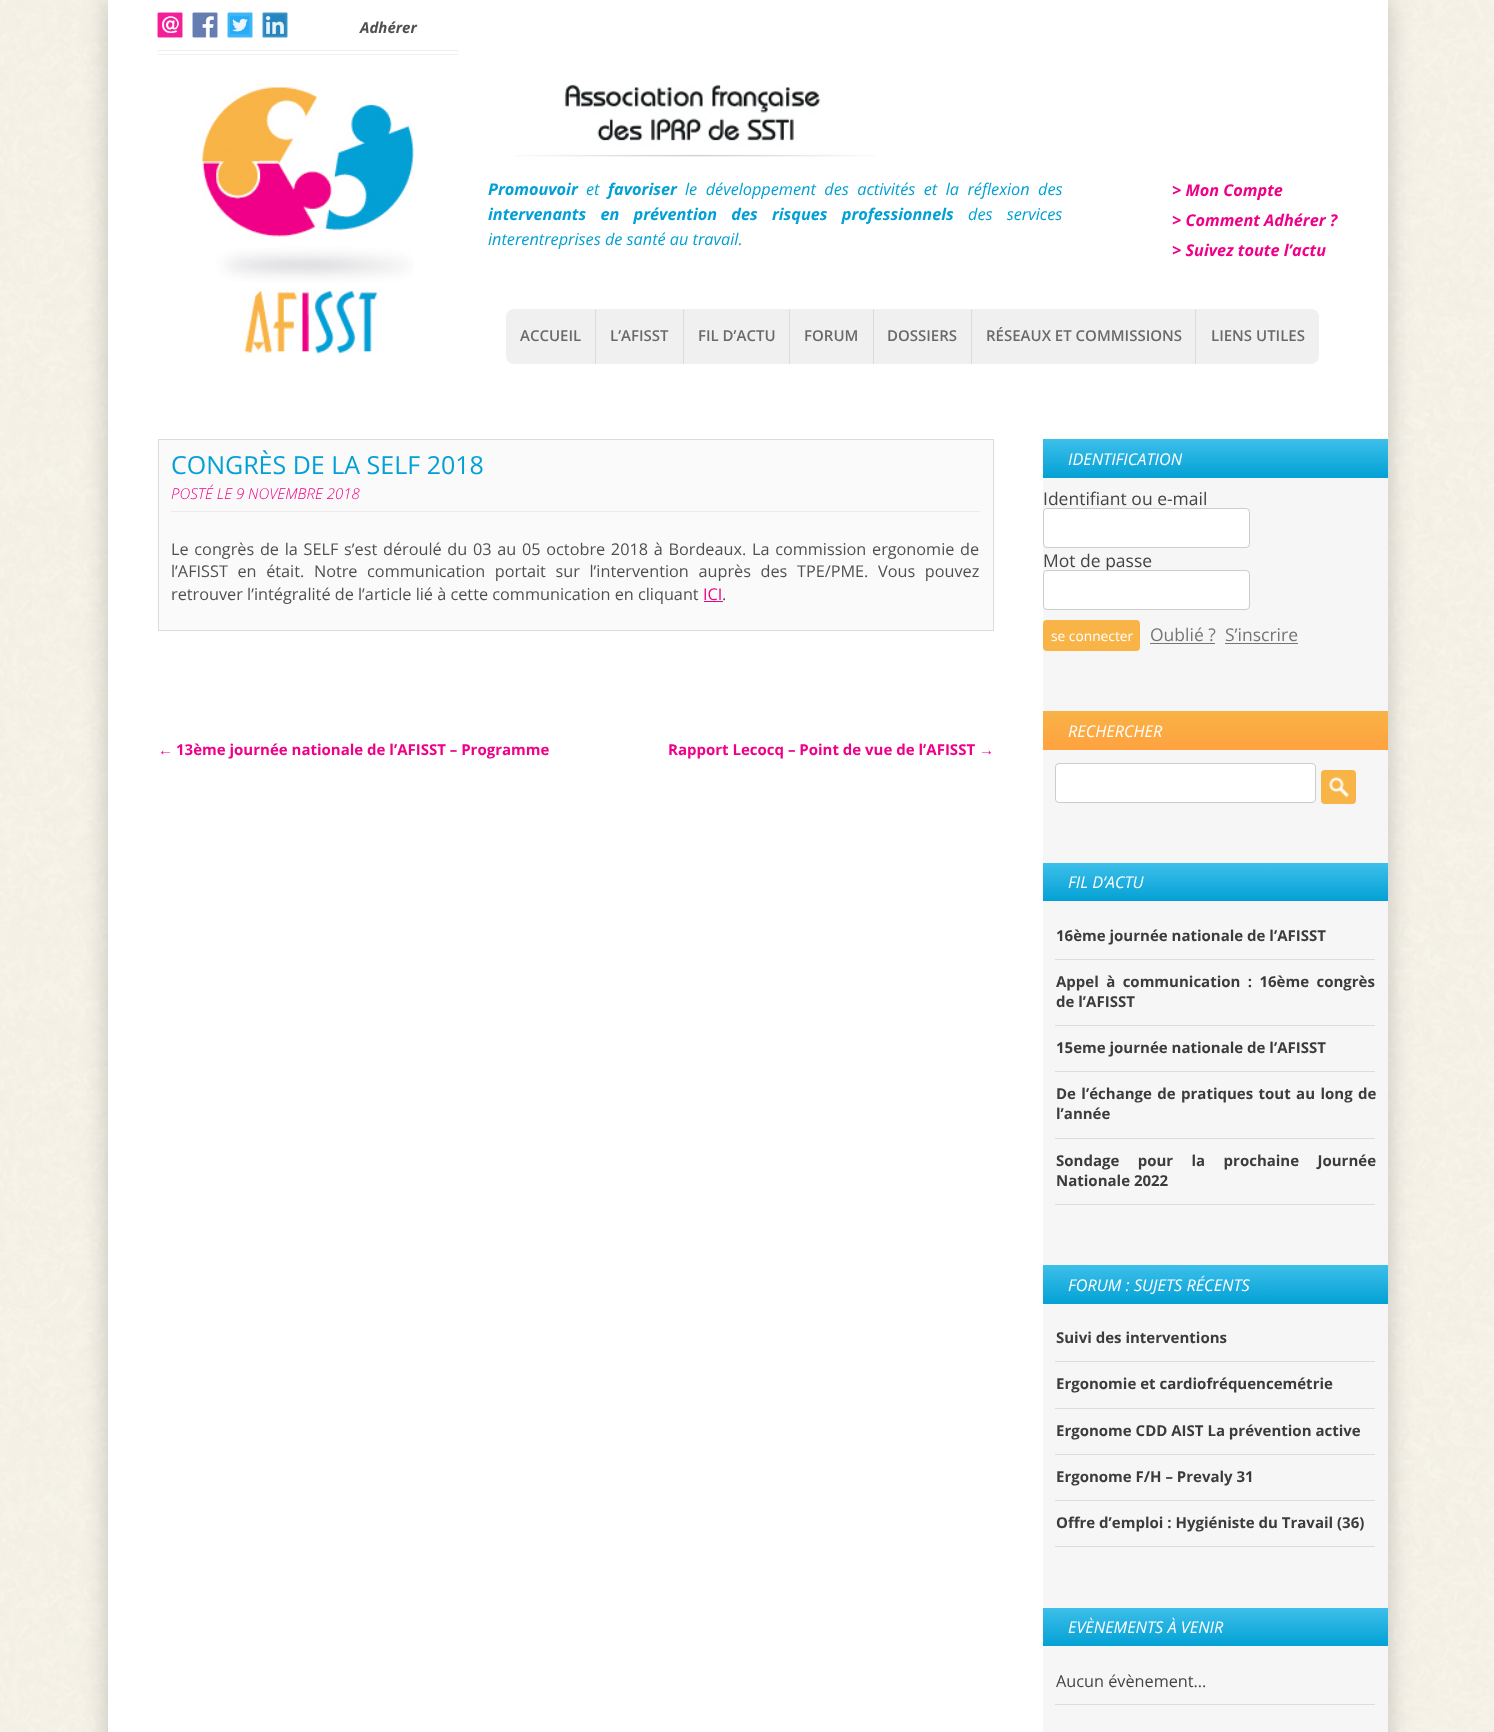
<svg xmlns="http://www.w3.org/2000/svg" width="1494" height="1732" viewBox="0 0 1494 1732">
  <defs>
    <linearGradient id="g1" gradientUnits="userSpaceOnUse" x1="1215" y1="439" x2="1215" y2="478"><stop offset="0" stop-color="rgb(61,191,234)"/><stop offset="1" stop-color="rgb(3,161,213)"/></linearGradient>
    <linearGradient id="g2" gradientUnits="userSpaceOnUse" x1="1215" y1="711" x2="1215" y2="750"><stop offset="0" stop-color="rgb(248,179,70)"/><stop offset="1" stop-color="rgb(255,162,64)"/></linearGradient>
    <linearGradient id="g3" gradientUnits="userSpaceOnUse" x1="1215" y1="863" x2="1215" y2="901"><stop offset="0" stop-color="rgb(61,191,234)"/><stop offset="1" stop-color="rgb(3,161,213)"/></linearGradient>
    <linearGradient id="g4" gradientUnits="userSpaceOnUse" x1="1215" y1="1265" x2="1215" y2="1304"><stop offset="0" stop-color="rgb(61,191,234)"/><stop offset="1" stop-color="rgb(3,161,213)"/></linearGradient>
    <linearGradient id="g5" gradientUnits="userSpaceOnUse" x1="1215" y1="1608" x2="1215" y2="1646"><stop offset="0" stop-color="rgb(61,191,234)"/><stop offset="1" stop-color="rgb(3,161,213)"/></linearGradient>
  </defs>
  <rect width="100%" height="100%" fill="rgb(255,255,255)"/>
  <image x="0" y="0" width="1494" height="1732" href="pic1.png"/>
  <rect x="108" y="0" width="1280" height="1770" fill="rgba(0,0,0,0.2)" filter="blur(12.5px)"/>
  <rect x="108" y="0" width="1280" height="1732" fill="rgb(255,255,255)"/>
  <rect x="158" y="50" width="300" height="1" fill="rgb(240,240,240)"/>
  <rect x="158" y="54" width="300" height="1" fill="rgb(240,240,240)"/>
  <image x="157" y="12" width="26" height="26" href="pic2.png"/>
  <image x="192" y="12" width="26" height="26" href="pic3.png"/>
  <image x="227" y="12" width="26" height="26" href="pic4.png"/>
  <image x="262" y="12" width="26" height="26" href="pic5.png"/>
  <text x="360" y="33" font-family="Open Sans" font-size="15" font-weight="bold" font-style="italic" fill="rgb(80,80,80)">Adhérer</text>
  <image x="202" y="85" width="212" height="271" href="pic6.png"/>
  <image x="514" y="84" width="362" height="73" href="pic7.png"/>
  <text x="488" y="195" font-family="Open Sans" font-size="16.25" font-weight="bold" font-style="italic" fill="rgb(3,160,213)">Promouvoir</text>
  <text x="586" y="195" font-family="Open Sans" font-size="16.25" font-style="italic" fill="rgb(3,160,213)">et</text>
  <text x="608" y="195" font-family="Open Sans" font-size="16.25" font-weight="bold" font-style="italic" fill="rgb(3,160,213)">favoriser</text>
  <text x="685" y="195" word-spacing="4.25" font-family="Open Sans" font-size="16.25" font-style="italic" fill="rgb(3,160,213)">le développement des activités et la réflexion des</text>
  <text x="488" y="220" word-spacing="10" font-family="Open Sans" font-size="16.25" font-weight="bold" font-style="italic" fill="rgb(3,160,213)">intervenants en prévention des risques professionnels</text>
  <g font-family="Open Sans" font-size="16.25" font-style="italic" fill="rgb(3,160,213)">
    <text x="968" y="220" word-spacing="10">des services</text>
    <text x="488" y="245">interentreprises de santé au travail.</text>
  </g>
  <g font-family="Open Sans" font-size="16.25" font-weight="bold" font-style="italic" fill="rgb(240,0,137)">
    <text>
      <tspan x="1172" y="196">&gt; Mon Compte</tspan>
      <tspan x="1172" y="226">&gt; Comment Adhérer ?</tspan>
      <tspan x="1172" y="256">&gt; Suivez toute l’actu</tspan>
    </text>
  </g>
  <rect x="506" y="309" width="813" height="55" rx="8" fill="rgb(240,240,240)"/>
  <rect x="595" y="309" width="1" height="55" fill="rgb(220,220,220)"/>
  <text x="520" y="341" font-family="Open Sans" font-size="15" font-weight="600" fill="rgb(106,106,106)">ACCUEIL</text>
  <rect x="683" y="309" width="1" height="55" fill="rgb(220,220,220)"/>
  <text x="610" y="341" font-family="Open Sans" font-size="15" font-weight="600" fill="rgb(106,106,106)">L’AFISST</text>
  <rect x="789" y="309" width="1" height="55" fill="rgb(220,220,220)"/>
  <text x="698" y="341" font-family="Open Sans" font-size="15" font-weight="600" fill="rgb(106,106,106)">FIL D’ACTU</text>
  <rect x="873" y="309" width="1" height="55" fill="rgb(220,220,220)"/>
  <text x="804" y="341" font-family="Open Sans" font-size="15" font-weight="600" fill="rgb(106,106,106)">FORUM</text>
  <rect x="971" y="309" width="1" height="55" fill="rgb(220,220,220)"/>
  <text x="887" y="341" font-family="Open Sans" font-size="15" font-weight="600" fill="rgb(106,106,106)">DOSSIERS</text>
  <rect x="1195" y="309" width="1" height="55" fill="rgb(220,220,220)"/>
  <g font-family="Open Sans" font-size="15" font-weight="600" fill="rgb(106,106,106)">
    <text x="986" y="341">RÉSEAUX ET COMMISSIONS</text>
    <text x="1211" y="341">LIENS UTILES</text>
  </g>
  <rect x="158.5" y="439.5" width="835" height="191" fill="rgb(250,250,250)" stroke="rgb(220,220,220)"/>
  <rect x="171" y="511" width="809" height="1" fill="rgb(235,235,235)"/>
  <text x="171" y="474" font-family="Open Sans" font-size="25" fill="rgb(3,160,213)">CONGRÈS DE LA SELF 2018</text>
  <text x="171" y="499" font-family="Open Sans" font-size="15" font-weight="300" font-style="italic" fill="rgb(240,0,137)">POSTÉ LE 9 NOVEMBRE 2018</text>
  <g font-family="Open Sans" font-size="16.25" fill="rgb(80,80,80)">
    <text>
      <tspan x="171" y="555" word-spacing="1.5">Le congrès de la SELF s’est déroulé du 03 au 05 octobre 2018 à Bordeaux. La commission ergonomie de</tspan>
      <tspan x="171" y="577" word-spacing="5.4">l’AFISST en était. Notre communication portait sur l’intervention auprès des TPE/PME. Vous pouvez</tspan>
      <tspan x="171" y="600">retrouver l’intégralité de l’article lié à cette communication en cliquant</tspan>
    </text>
  </g>
  <text x="703" y="600" font-family="Open Sans" font-size="16.25" fill="rgb(240,0,137)">ICI</text>
  <rect x="704" y="601" width="19" height="1" fill="rgb(240,0,136)"/>
  <text x="722" y="600" font-family="Open Sans" font-size="16.25" fill="rgb(80,80,80)">.</text>
  <text x="158" y="755" font-family="Liberation Sans" font-size="15" font-weight="bold" fill="rgb(240,0,137)">←</text>
  <g font-family="Open Sans" font-size="15" font-weight="bold" fill="rgb(240,0,137)">
    <text x="176" y="755">13ème journée nationale de l’AFISST – Programme</text>
    <text x="668" y="755">Rapport Lecocq – Point de vue de l’AFISST</text>
  </g>
  <text x="979" y="755" font-family="Liberation Sans" font-size="15" font-weight="bold" fill="rgb(240,0,137)">→</text>
  <rect x="1043" y="478" width="345" height="1254" fill="rgb(246,246,246)"/>
  <rect x="1043" y="439" width="345" height="39" fill="url(#g1)"/>
  <text x="1068" y="465" font-family="Open Sans" font-size="16.25" font-style="italic" fill="rgb(255,255,255)">IDENTIFICATION</text>
  <text x="1043" y="505" font-family="Open Sans" font-size="17.5" fill="rgb(68,68,68)">Identifiant ou e-mail</text>
  <rect x="1043.5" y="508.5" width="206" height="39" rx="3.5" fill="rgb(255,255,255)" stroke="rgb(204,204,204)"/>
  <text x="1043" y="567" font-family="Open Sans" font-size="17.5" fill="rgb(68,68,68)">Mot de passe</text>
  <rect x="1043.5" y="570.5" width="206" height="39" rx="3.5" fill="rgb(255,255,255)" stroke="rgb(204,204,204)"/>
  <rect x="1043" y="620" width="97" height="31" rx="4" fill="rgb(249,180,71)"/>
  <text x="1051" y="641" font-family="Open Sans" font-size="13.75" fill="rgb(255,255,255)">se connecter</text>
  <text x="1150" y="641" font-family="Open Sans" font-size="17.5" fill="rgb(117,117,117)">Oublié ?</text>
  <rect x="1150" y="643" width="65" height="1" fill="rgb(117,117,117)"/>
  <text x="1225" y="641" font-family="Open Sans" font-size="17.5" fill="rgb(117,117,117)">S’inscrire</text>
  <rect x="1225" y="643" width="73" height="1" fill="rgb(117,117,117)"/>
  <rect x="1043" y="711" width="345" height="39" fill="url(#g2)"/>
  <text x="1068" y="737" font-family="Open Sans" font-size="16.25" font-style="italic" fill="rgb(255,255,255)">RECHERCHER</text>
  <rect x="1055.5" y="763.5" width="260" height="39" rx="3.5" fill="rgb(255,255,255)" stroke="rgb(204,204,204)"/>
  <rect x="1321" y="770" width="35" height="34" rx="4" fill="rgb(249,180,71)"/>
  <image x="1328" y="777" width="21" height="21" href="pic8.png"/>
  <rect x="1043" y="863" width="345" height="38" fill="url(#g3)"/>
  <text x="1068" y="888" font-family="Open Sans" font-size="16.25" font-style="italic" fill="rgb(255,255,255)">FIL D’ACTU</text>
  <rect x="1055" y="959" width="320" height="1" fill="rgb(220,220,220)"/>
  <text x="1056" y="941" font-family="Open Sans" font-size="15" font-weight="bold" fill="rgb(60,60,60)">16ème journée nationale de l’AFISST</text>
  <rect x="1055" y="1025" width="320" height="1" fill="rgb(220,220,220)"/>
  <g font-family="Open Sans" font-size="15" font-weight="bold" fill="rgb(60,60,60)">
    <text>
      <tspan x="1056" y="987" word-spacing="3.5">Appel à communication : 16ème congrès</tspan>
      <tspan x="1056" y="1007">de l’AFISST</tspan>
    </text>
  </g>
  <rect x="1055" y="1071" width="320" height="1" fill="rgb(220,220,220)"/>
  <text x="1056" y="1053" font-family="Open Sans" font-size="15" font-weight="bold" fill="rgb(60,60,60)">15eme journée nationale de l’AFISST</text>
  <rect x="1055" y="1138" width="320" height="1" fill="rgb(220,220,220)"/>
  <g font-family="Open Sans" font-size="15" font-weight="bold" fill="rgb(60,60,60)">
    <text>
      <tspan x="1056" y="1099" word-spacing="1.5">De l’échange de pratiques tout au long de</tspan>
      <tspan x="1056" y="1119">l’année</tspan>
    </text>
  </g>
  <rect x="1055" y="1204" width="320" height="1" fill="rgb(220,220,220)"/>
  <g font-family="Open Sans" font-size="15" font-weight="bold" fill="rgb(60,60,60)">
    <text>
      <tspan x="1056" y="1166" word-spacing="14.5">Sondage pour la prochaine Journée</tspan>
      <tspan x="1056" y="1186">Nationale 2022</tspan>
    </text>
  </g>
  <rect x="1043" y="1265" width="345" height="39" fill="url(#g4)"/>
  <text x="1068" y="1291" font-family="Open Sans" font-size="16.25" font-style="italic" fill="rgb(255,255,255)">FORUM : SUJETS RÉCENTS</text>
  <rect x="1055" y="1361" width="320" height="1" fill="rgb(220,220,220)"/>
  <text x="1056" y="1343" font-family="Open Sans" font-size="15" font-weight="bold" fill="rgb(60,60,60)">Suivi des interventions</text>
  <rect x="1055" y="1408" width="320" height="1" fill="rgb(220,220,220)"/>
  <text x="1056" y="1389" font-family="Open Sans" font-size="15" font-weight="bold" fill="rgb(60,60,60)">Ergonomie et cardiofréquencemétrie</text>
  <rect x="1055" y="1454" width="320" height="1" fill="rgb(220,220,220)"/>
  <text x="1056" y="1436" font-family="Open Sans" font-size="15" font-weight="bold" fill="rgb(60,60,60)">Ergonome CDD AIST La prévention active</text>
  <rect x="1055" y="1500" width="320" height="1" fill="rgb(220,220,220)"/>
  <text x="1056" y="1482" font-family="Open Sans" font-size="15" font-weight="bold" fill="rgb(60,60,60)">Ergonome F/H – Prevaly 31</text>
  <rect x="1055" y="1546" width="320" height="1" fill="rgb(220,220,220)"/>
  <text x="1056" y="1528" font-family="Open Sans" font-size="15" font-weight="bold" fill="rgb(60,60,60)">Offre d’emploi : Hygiéniste du Travail (36)</text>
  <rect x="1043" y="1608" width="345" height="38" fill="url(#g5)"/>
  <text x="1068" y="1633" font-family="Open Sans" font-size="16.25" font-style="italic" fill="rgb(255,255,255)">EVÈNEMENTS À VENIR</text>
  <rect x="1055" y="1704" width="320" height="1" fill="rgb(220,220,220)"/>
  <text x="1056" y="1687" font-family="Open Sans" font-size="16.25" fill="rgb(68,68,68)">Aucun évènement...</text>
</svg>
